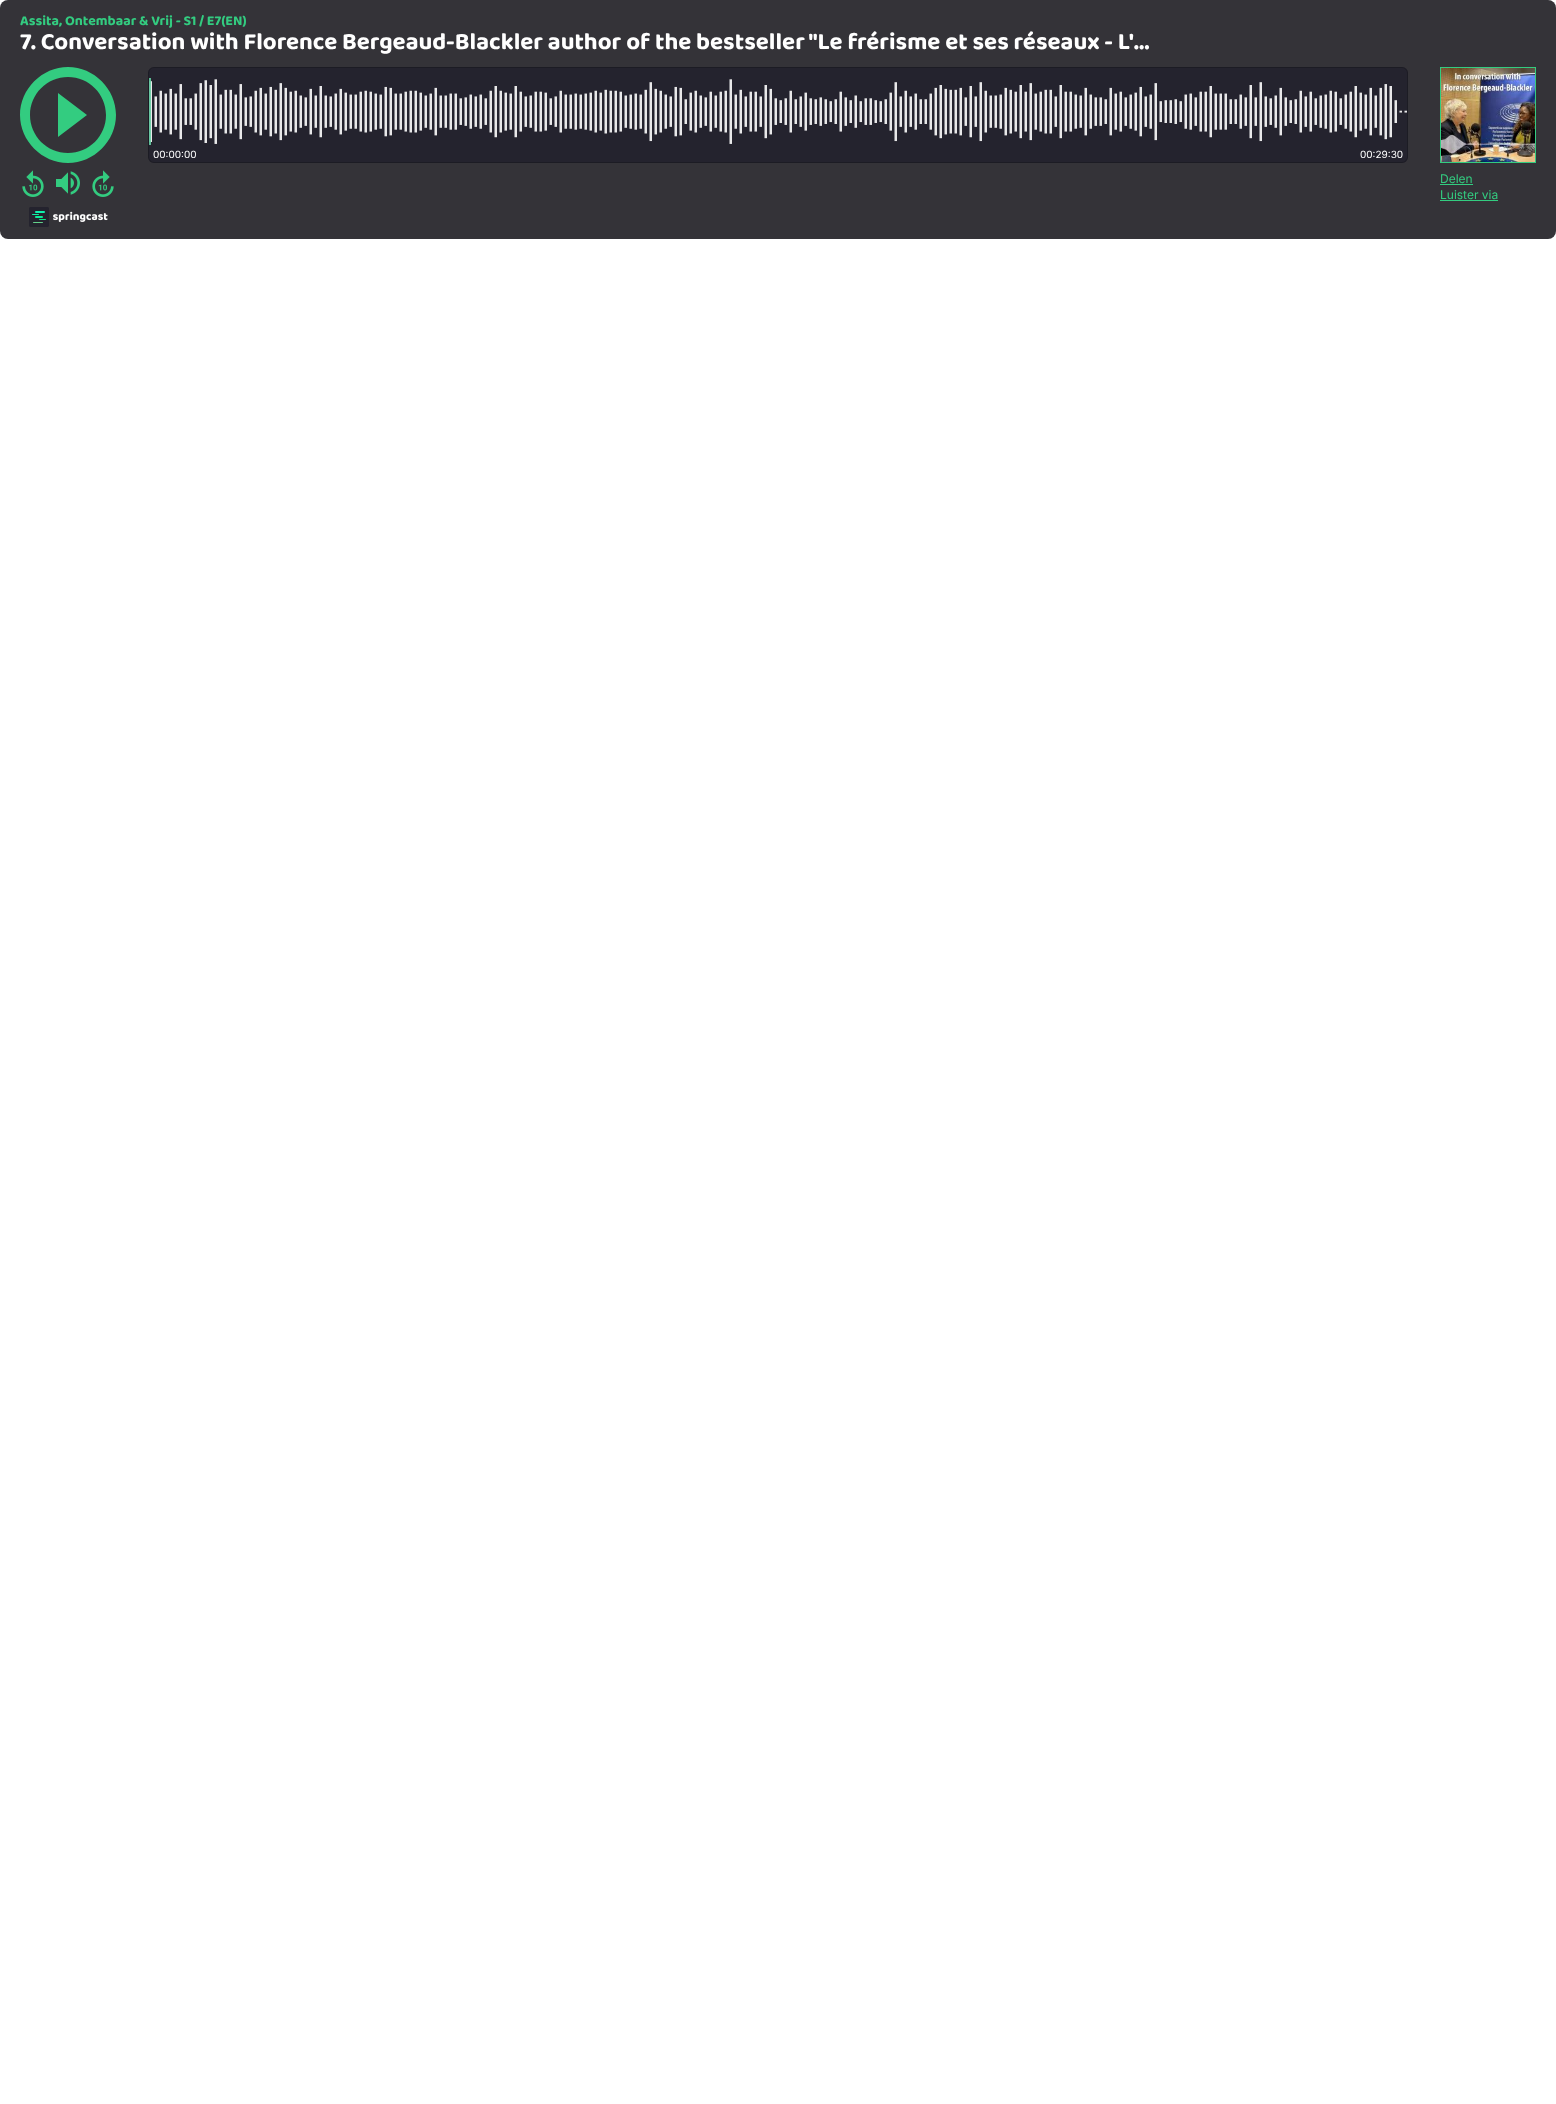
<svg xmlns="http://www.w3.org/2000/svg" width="1556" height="2104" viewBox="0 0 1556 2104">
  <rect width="100%" height="100%" fill="rgb(255,255,255)"/>
  <rect x="0" y="0" width="1556" height="239" rx="8" fill="rgb(52,51,56)"/>
  <text x="20" y="25" font-family="'Baloo Bhai 2'" font-size="14" font-weight="bold" fill="rgb(51,204,128)">Assita, Ontembaar &amp; Vrij - S1 / E7(EN)</text>
  <text x="20" y="49" font-family="'Baloo Bhai 2'" font-size="24" font-weight="bold" fill="rgb(255,255,255)">7. Conversation with Florence Bergeaud-Blackler author of the bestseller "Le frérisme et ses réseaux - L'…</text>
  <path d="M58 137L87 115L58 93ZM68 67C42 67 20 89 20 115C20 141 42 163 68 163C94 163 116 141 116 115C116 89 94 67 68 67ZM68 153C47 153 30 136 30 115C30 94 47 77 68 77C89 77 106 94 106 115C106 136 89 153 68 153Z" fill="rgb(51,204,128)"/>
  <image x="22" y="170" width="22" height="27" href="pic1.png"/>
  <image x="56" y="171" width="24" height="24" href="pic2.png"/>
  <image x="92" y="170" width="22" height="27" href="pic3.png"/>
  <image x="29" y="207" width="79" height="20" href="pic4.png"/>
  <rect x="148" y="67" width="1260" height="96" rx="6" fill="rgb(36,35,46)"/>
  <rect x="148.5" y="67.5" width="1259" height="95" rx="5.5" fill="none" stroke="rgba(0,0,0,0.2)"/>
  <image x="149" y="79" width="1258" height="65" href="pic5.png"/>
  <rect x="149" y="78" width="2" height="67" fill="rgba(102,205,163,0.9)"/>
  <g font-family="Inter" font-size="10" fill="rgb(255,255,255)">
    <text x="153" y="158">00:00:00</text>
    <text x="1360" y="158">00:29:30</text>
  </g>
  <rect x="1440.5" y="67.5" width="95" height="95" fill="none" stroke="rgb(51,204,128)"/>
  <image x="1441" y="68" width="94" height="94" href="pic6.png"/>
  <text x="1440" y="183" font-family="Inter" font-size="12" fill="rgb(51,204,128)">Delen</text>
  <rect x="1440" y="184" width="33" height="1" fill="rgb(51,204,128)"/>
  <text x="1440" y="199" font-family="Inter" font-size="12" fill="rgb(51,204,128)">Luister via</text>
  <rect x="1440" y="200" width="58" height="1" fill="rgb(51,204,128)"/>
</svg>
